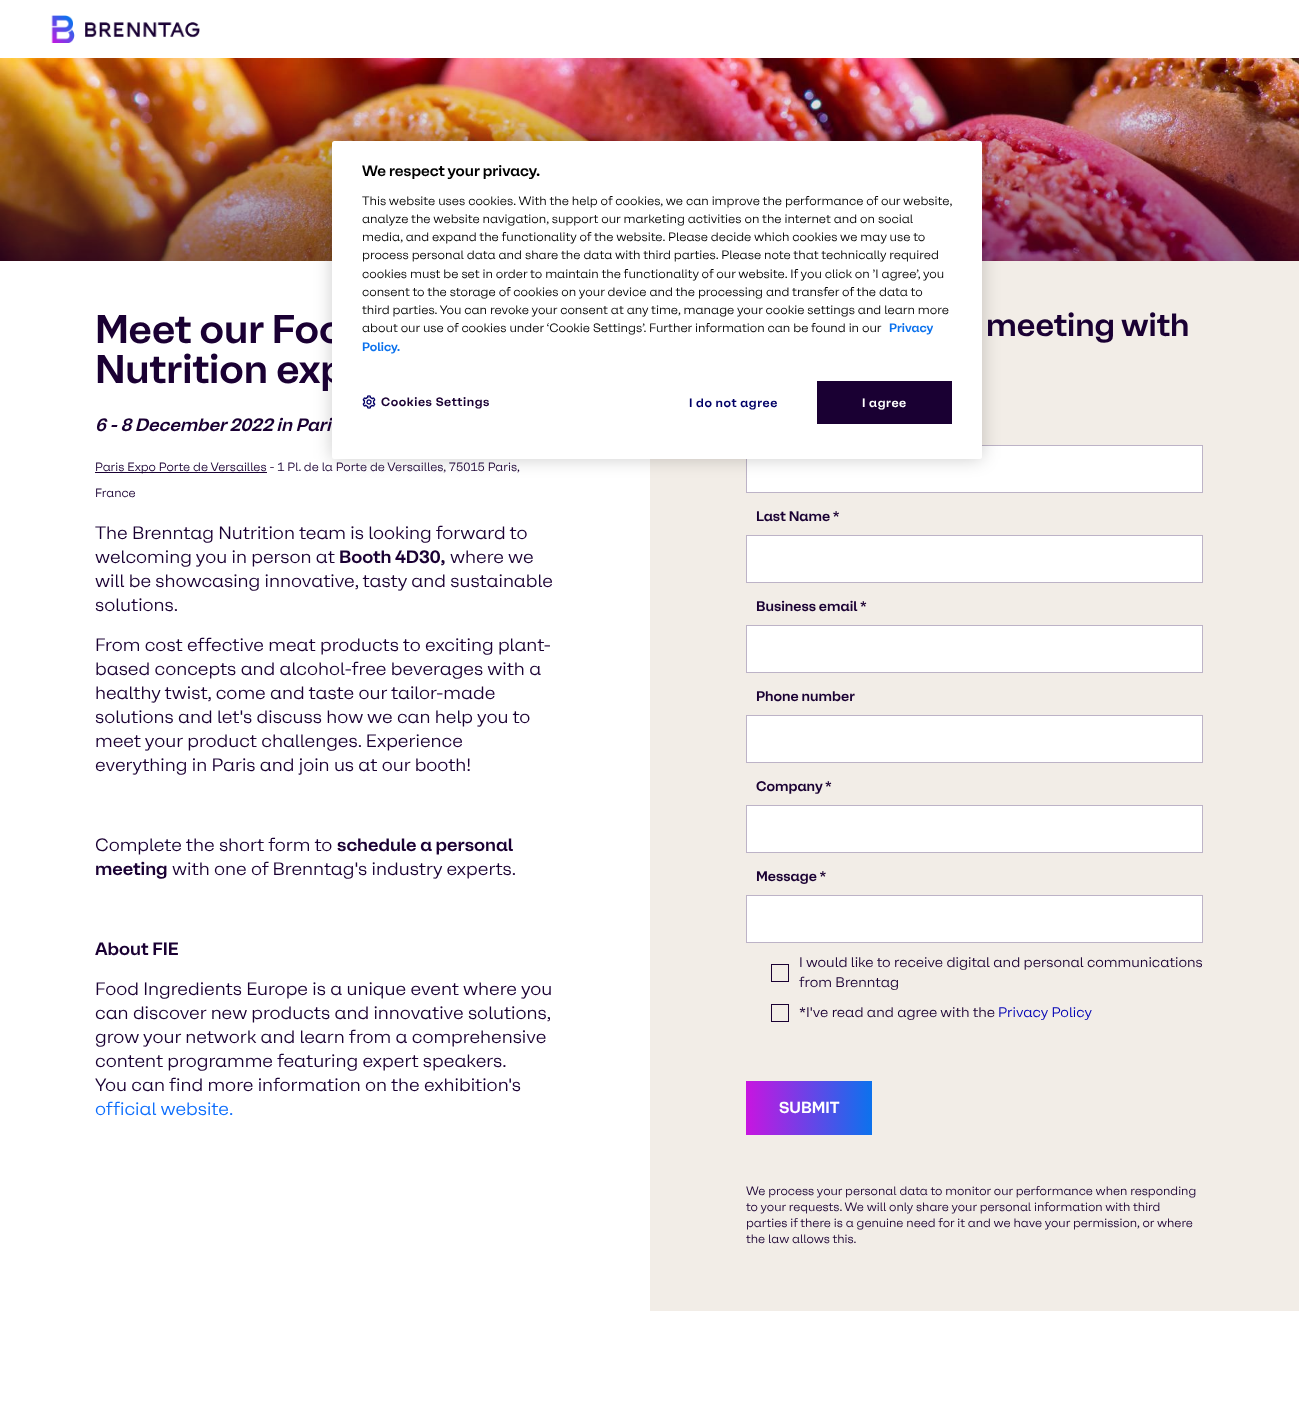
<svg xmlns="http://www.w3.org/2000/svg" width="1299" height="1405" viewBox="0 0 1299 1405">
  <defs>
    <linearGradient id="g1" gradientUnits="userSpaceOnUse" x1="746" y1="1108" x2="872" y2="1108"><stop offset="0" stop-color="rgb(200,21,224)"/><stop offset="1" stop-color="rgb(12,114,237)"/></linearGradient>
  </defs>
  <rect width="100%" height="100%" fill="rgb(255,255,255)"/>
  <image x="51" y="15" width="149" height="28" href="pic1.png"/>
  <image x="0" y="58" width="1299" height="203" href="pic2.png"/>
  <rect x="650" y="261" width="649" height="1050" fill="rgb(242,237,231)"/>
  <rect x="746.5" y="445.5" width="456" height="47" fill="rgb(255,255,255)" stroke="rgb(189,179,199)"/>
  <rect x="332" y="141" width="650" height="318" rx="2.5" fill="rgba(0,0,0,0.2)" filter="blur(9px)"/>
  <g font-family="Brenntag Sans" font-size="40" font-weight="bold" fill="rgb(26,0,51)">
    <text>
      <tspan x="95" y="343">Meet our Foo</tspan>
      <tspan x="95" y="383">Nutrition exp</tspan>
    </text>
  </g>
  <text x="95" y="431" font-family="Brenntag Sans" font-size="18" font-weight="bold" font-style="italic" fill="rgb(26,0,51)">6 - 8 December 2022 in Pari</text>
  <rect x="332" y="141" width="650" height="318" rx="2.5" fill="rgb(255,255,255)"/>
  <text x="362" y="176" font-family="Brenntag Sans" font-size="15" font-weight="bold" fill="rgb(0,0,0)">We respect your privacy.</text>
  <g font-family="Brenntag Sans" font-size="12.2" fill="rgb(0,0,0)">
    <text>
      <tspan x="362" y="205">This website uses cookies. With the help of cookies, we can improve the performance of our website,</tspan>
      <tspan x="362" y="223">analyze the website navigation, support our marketing activities on the internet and on social</tspan>
      <tspan x="362" y="241">media, and expand the functionality of the website. Please decide which cookies we may use to</tspan>
      <tspan x="362" y="259">process personal data and share the data with third parties. Please note that technically required</tspan>
      <tspan x="362" y="278">cookies must be set in order to maintain the functionality of our website. If you click on ’I agree’, you</tspan>
      <tspan x="362" y="296">consent to the storage of cookies on your device and the processing and transfer of the data to</tspan>
      <tspan x="362" y="314">third parties. You can revoke your consent at any time, manage your cookie settings and learn more</tspan>
      <tspan x="362" y="332">about our use of cookies under ‘Cookie Settings’. Further information can be found in our</tspan>
    </text>
  </g>
  <g font-family="Brenntag Sans" font-size="12.2" font-weight="bold" fill="rgb(12,114,237)">
    <text x="889" y="332">Privacy</text>
    <text x="362" y="351">Policy.</text>
  </g>
  <image x="362" y="395" width="14" height="14" href="pic3.png"/>
  <text x="381" y="406" font-family="Brenntag Sans" font-size="12.2" font-weight="bold" letter-spacing="0.6" fill="rgb(26,0,51)">Cookies Settings</text>
  <text x="689" y="407" font-family="Brenntag Sans" font-size="12.2" font-weight="bold" letter-spacing="0.6" fill="rgb(0,0,102)">I do not agree</text>
  <rect x="817" y="381" width="135" height="43" fill="rgb(26,0,51)"/>
  <text x="862" y="407" font-family="Brenntag Sans" font-size="12.2" font-weight="bold" letter-spacing="0.6" fill="rgb(255,255,255)">I agree</text>
  <rect x="95" y="472" width="172" height="1" fill="rgb(26,0,51)"/>
  <g font-family="Brenntag Sans" font-size="12" fill="rgb(26,0,51)">
    <text x="95" y="471">Paris Expo Porte de Versailles - 1 Pl. de la Porte de Versailles, 75015 Paris,</text>
    <text x="95" y="497">France</text>
  </g>
  <g font-family="Brenntag Sans" font-size="18" fill="rgb(26,0,51)">
    <text>
      <tspan x="95" y="539">The Brenntag Nutrition team is looking forward to</tspan>
      <tspan x="95" y="563">welcoming you in person at</tspan>
    </text>
  </g>
  <text x="339" y="563" font-family="Brenntag Sans" font-size="18" font-weight="bold" fill="rgb(26,0,51)">Booth 4D30,</text>
  <g font-family="Brenntag Sans" font-size="18" fill="rgb(26,0,51)">
    <text x="450" y="563">where we</text>
    <text>
      <tspan x="95" y="587">will be showcasing innovative, tasty and sustainable</tspan>
      <tspan x="95" y="611">solutions.</tspan>
    </text>
    <text>
      <tspan x="95" y="651">From cost effective meat products to exciting plant-</tspan>
      <tspan x="95" y="675">based concepts and alcohol-free beverages with a</tspan>
      <tspan x="95" y="699">healthy twist, come and taste our tailor-made</tspan>
      <tspan x="95" y="723">solutions and let's discuss how we can help you to</tspan>
      <tspan x="95" y="747">meet your product challenges. Experience</tspan>
      <tspan x="95" y="771">everything in Paris and join us at our booth!</tspan>
    </text>
    <text x="95" y="851">Complete the short form to</text>
  </g>
  <g font-family="Brenntag Sans" font-size="18" font-weight="bold" fill="rgb(26,0,51)">
    <text x="337" y="851">schedule a personal</text>
    <text x="95" y="875">meeting</text>
  </g>
  <text x="172" y="875" font-family="Brenntag Sans" font-size="18" fill="rgb(26,0,51)">with one of Brenntag's industry experts.</text>
  <text x="95" y="955" font-family="Brenntag Sans" font-size="18" font-weight="bold" fill="rgb(26,0,51)">About FIE</text>
  <g font-family="Brenntag Sans" font-size="18" fill="rgb(26,0,51)">
    <text>
      <tspan x="95" y="995">Food Ingredients Europe is a unique event where you</tspan>
      <tspan x="95" y="1019">can discover new products and innovative solutions,</tspan>
      <tspan x="95" y="1043">grow your network and learn from a comprehensive</tspan>
      <tspan x="95" y="1067">content programme featuring expert speakers.</tspan>
      <tspan x="95" y="1091">You can find more information on the exhibition's</tspan>
    </text>
  </g>
  <text x="95" y="1115" font-family="Brenntag Sans" font-size="18" fill="rgb(13,110,253)">official website.</text>
  <text x="986" y="336" font-family="Brenntag Sans" font-size="32" font-weight="bold" fill="rgb(26,0,51)">meeting with</text>
  <text x="756" y="521" font-family="Brenntag Sans" font-size="14" font-weight="bold" fill="rgb(26,0,51)">Last Name *</text>
  <rect x="746.5" y="535.5" width="456" height="47" fill="rgb(255,255,255)" stroke="rgb(189,179,199)"/>
  <text x="756" y="611" font-family="Brenntag Sans" font-size="14" font-weight="bold" fill="rgb(26,0,51)">Business email *</text>
  <rect x="746.5" y="625.5" width="456" height="47" fill="rgb(255,255,255)" stroke="rgb(189,179,199)"/>
  <text x="756" y="701" font-family="Brenntag Sans" font-size="14" font-weight="bold" fill="rgb(26,0,51)">Phone number</text>
  <rect x="746.5" y="715.5" width="456" height="47" fill="rgb(255,255,255)" stroke="rgb(189,179,199)"/>
  <g font-family="Brenntag Sans" font-size="14" font-weight="bold" fill="rgb(26,0,51)">
    <text x="756" y="791">Company</text>
    <text x="825" y="791">*</text>
  </g>
  <rect x="746.5" y="805.5" width="456" height="47" fill="rgb(255,255,255)" stroke="rgb(189,179,199)"/>
  <text x="756" y="881" font-family="Brenntag Sans" font-size="14" font-weight="bold" fill="rgb(26,0,51)">Message *</text>
  <rect x="746.5" y="895.5" width="456" height="47" fill="rgb(255,255,255)" stroke="rgb(189,179,199)"/>
  <rect x="771.5" y="964.5" width="17" height="17" fill="none" stroke="rgb(26,0,51)"/>
  <g font-family="Brenntag Sans" font-size="14" fill="rgb(26,0,51)">
    <text>
      <tspan x="799" y="967">I would like to receive digital and personal communications</tspan>
      <tspan x="799" y="987">from Brenntag</tspan>
    </text>
  </g>
  <rect x="771.5" y="1004.5" width="17" height="17" fill="none" stroke="rgb(26,0,51)"/>
  <text x="799" y="1017" font-family="Brenntag Sans" font-size="14" fill="rgb(26,0,51)">*I've read and agree with the</text>
  <text x="998" y="1017" font-family="Brenntag Sans" font-size="14" fill="rgb(0,0,180)">Privacy Policy</text>
  <rect x="746" y="1081" width="126" height="54" fill="url(#g1)"/>
  <text x="779" y="1113" font-family="Brenntag Sans" font-size="16" font-weight="bold" fill="rgb(255,255,255)">SUBMIT</text>
  <g font-family="Brenntag Sans" font-size="12" fill="rgb(26,0,51)">
    <text>
      <tspan x="746" y="1195">We process your personal data to monitor our performance when responding</tspan>
      <tspan x="746" y="1211">to your requests. We will only share your personal information with third</tspan>
      <tspan x="746" y="1227">parties if there is a genuine need for it and we have your permission, or where</tspan>
      <tspan x="746" y="1243">the law allows this.</tspan>
    </text>
  </g>
</svg>
